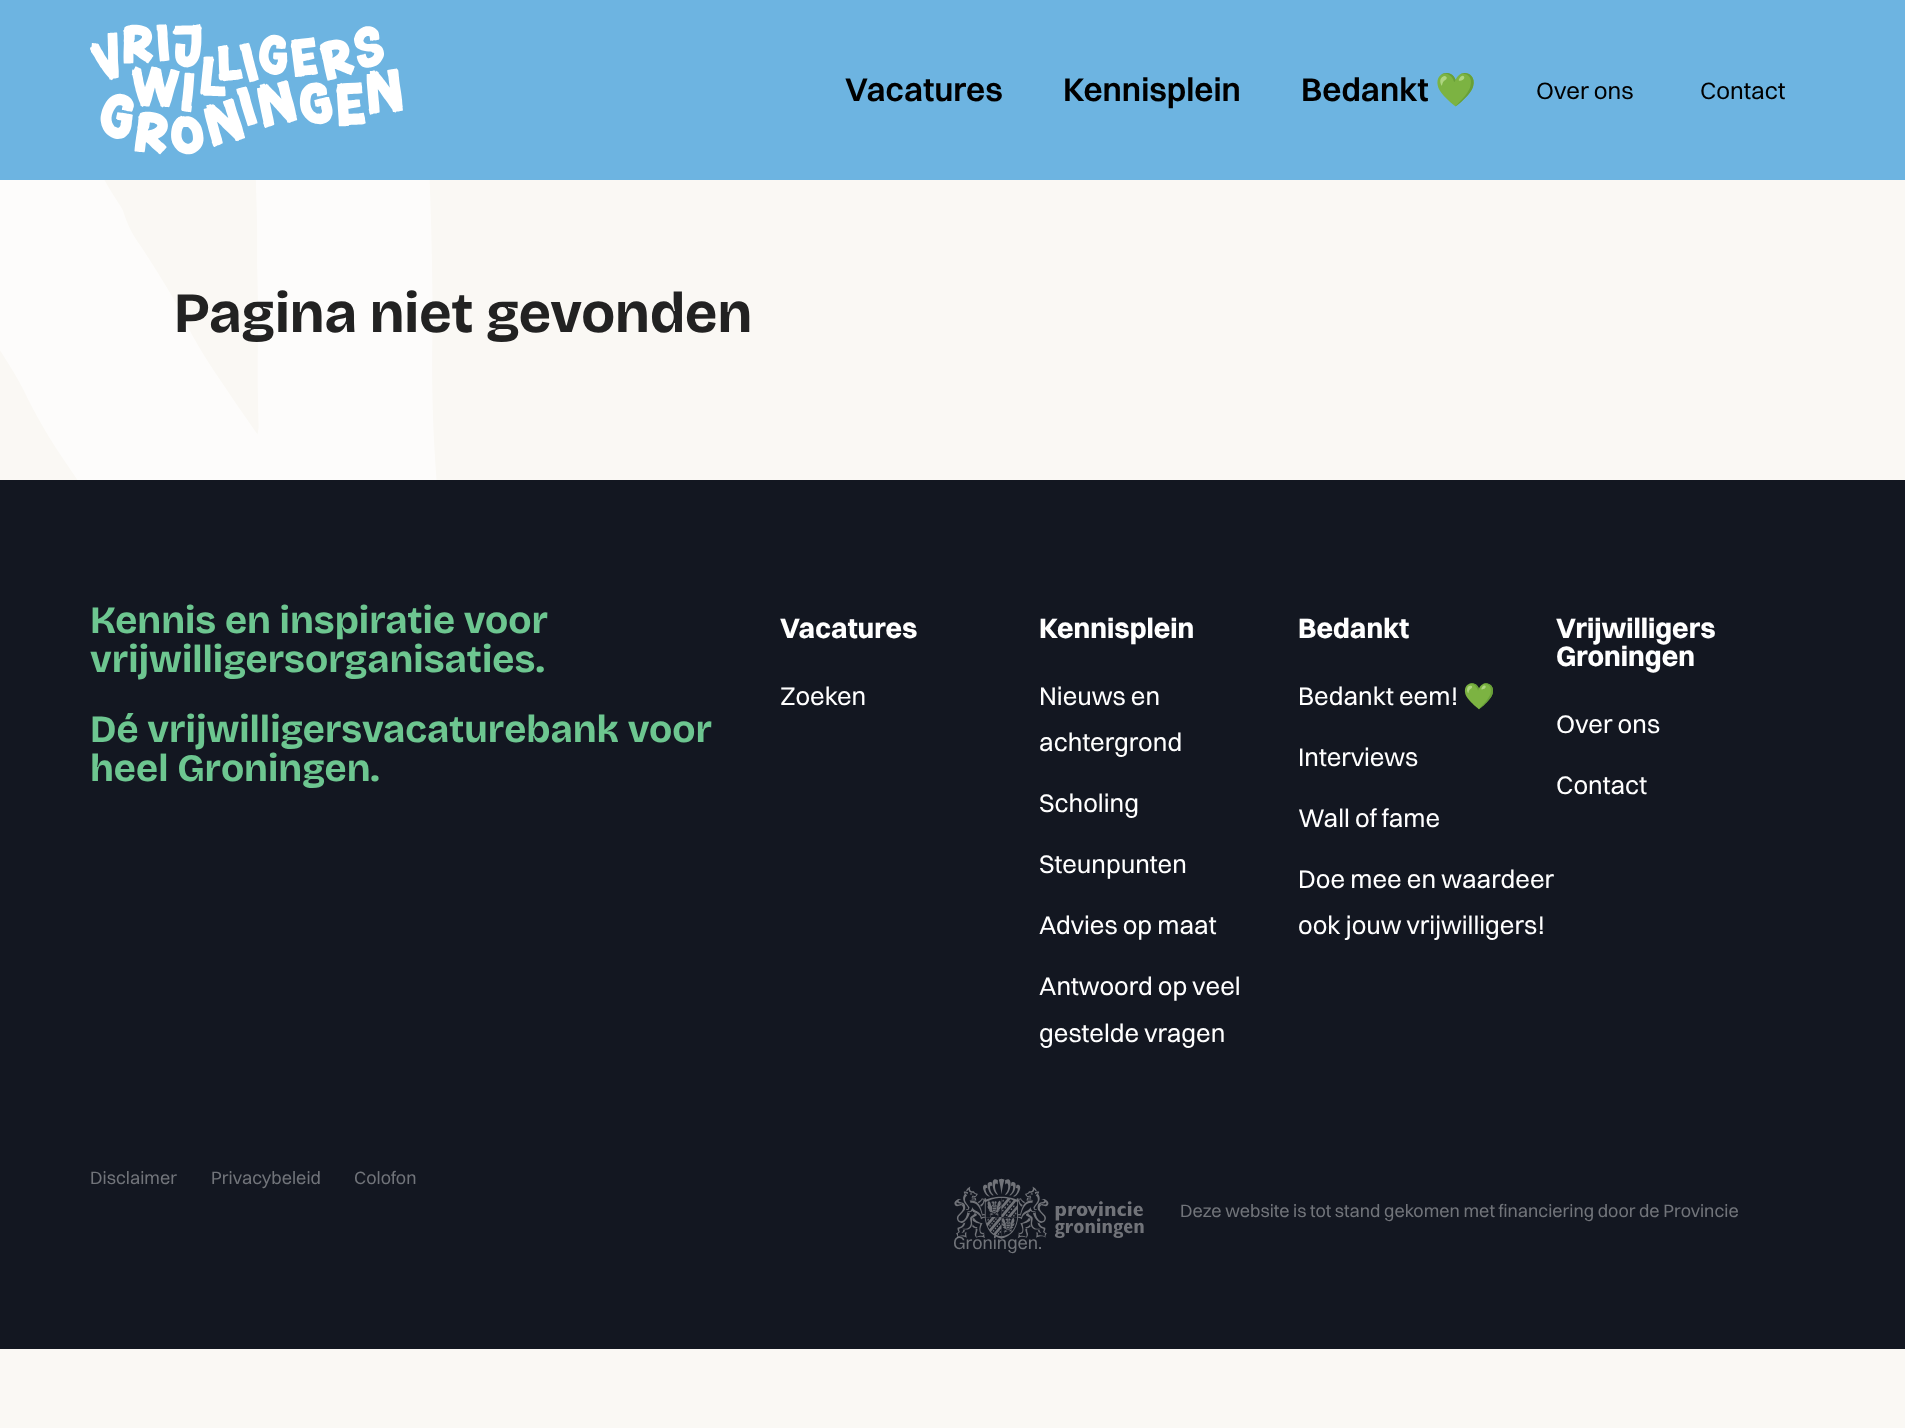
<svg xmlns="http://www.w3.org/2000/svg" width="1905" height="1428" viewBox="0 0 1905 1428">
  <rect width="100%" height="100%" fill="rgb(250,248,244)"/>
  <rect x="0" y="0" width="1905" height="180" fill="rgb(109,180,225)"/>
  <image x="90" y="24" width="313" height="131" href="pic1.png"/>
  <g font-family="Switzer" font-size="33" font-weight="600" fill="rgb(0,0,0)">
    <text x="845" y="101">Vacatures</text>
    <text x="1063" y="101">Kennisplein</text>
    <text x="1301" y="101">Bedankt</text>
  </g>
  <text x="1435" y="101" font-family="Noto Color Emoji" font-size="33" font-weight="bold" fill="rgb(0,0,0)">💚</text>
  <g font-family="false" font-size="24" fill="rgb(0,0,0)">
    <text x="1536" y="99">Over ons</text>
    <text x="1700" y="99">Contact</text>
  </g>
  <image x="0" y="180" width="437" height="300" href="pic2.png"/>
  <text x="174" y="332" font-family="Bricolage Grotesque" font-size="57" font-weight="bold" fill="rgb(34,34,34)">Pagina niet gevonden</text>
  <rect x="0" y="480" width="1905" height="869" fill="rgb(19,23,33)"/>
  <g font-family="'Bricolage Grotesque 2'" font-size="38.5" font-weight="bold" fill="rgb(109,198,144)">
    <text>
      <tspan x="90" y="633">Kennis en inspiratie voor</tspan>
      <tspan x="90" y="672">vrijwilligersorganisaties.</tspan>
      <tspan x="90" y="742">Dé vrijwilligersvacaturebank voor</tspan>
      <tspan x="90" y="781">heel Groningen.</tspan>
    </text>
  </g>
  <text x="780" y="638" font-family="false" font-size="28.25" font-weight="bold" fill="rgb(255,255,255)">Vacatures</text>
  <text x="780" y="705" font-family="false" font-size="25.6" fill="rgb(255,255,255)">Zoeken</text>
  <text x="1039" y="638" font-family="false" font-size="28.25" font-weight="bold" fill="rgb(255,255,255)">Kennisplein</text>
  <g font-family="false" font-size="25.6" fill="rgb(255,255,255)">
    <text>
      <tspan x="1039" y="705">Nieuws en</tspan>
      <tspan x="1039" y="751">achtergrond</tspan>
    </text>
    <text x="1039" y="812">Scholing</text>
    <text x="1039" y="873">Steunpunten</text>
    <text x="1039" y="934">Advies op maat</text>
    <text>
      <tspan x="1039" y="995">Antwoord op veel</tspan>
      <tspan x="1039" y="1042">gestelde vragen</tspan>
    </text>
  </g>
  <text x="1298" y="638" font-family="false" font-size="28.25" font-weight="bold" fill="rgb(255,255,255)">Bedankt</text>
  <text x="1298" y="705" font-family="false" font-size="25.6" fill="rgb(255,255,255)">Bedankt eem!</text>
  <text x="1463" y="705" font-family="Noto Color Emoji" font-size="25.6" fill="rgb(255,255,255)">💚</text>
  <g font-family="false" font-size="25.6" fill="rgb(255,255,255)">
    <text x="1298" y="766">Interviews</text>
    <text x="1298" y="827">Wall of fame</text>
    <text>
      <tspan x="1298" y="888">Doe mee en waardeer</tspan>
      <tspan x="1298" y="934">ook jouw vrijwilligers!</tspan>
    </text>
  </g>
  <g font-family="false" font-size="28.25" font-weight="bold" fill="rgb(255,255,255)">
    <text>
      <tspan x="1556" y="638">Vrijwilligers</tspan>
      <tspan x="1556" y="666">Groningen</tspan>
    </text>
  </g>
  <g font-family="false" font-size="25.6" fill="rgb(255,255,255)">
    <text x="1556" y="733">Over ons</text>
    <text x="1556" y="794">Contact</text>
  </g>
  <g font-family="false" font-size="18" fill="rgb(113,116,122)">
    <text x="90" y="1184">Disclaimer</text>
    <text x="211" y="1184">Privacybeleid</text>
    <text x="354" y="1184">Colofon</text>
    <text x="953" y="1249">Groningen.</text>
  </g>
  <image x="954" y="1178" width="190" height="61" href="pic3.png"/>
  <text x="1180" y="1217" font-family="false" font-size="18" fill="rgb(113,116,122)">Deze website is tot stand gekomen met financiering door de Provincie</text>
</svg>
